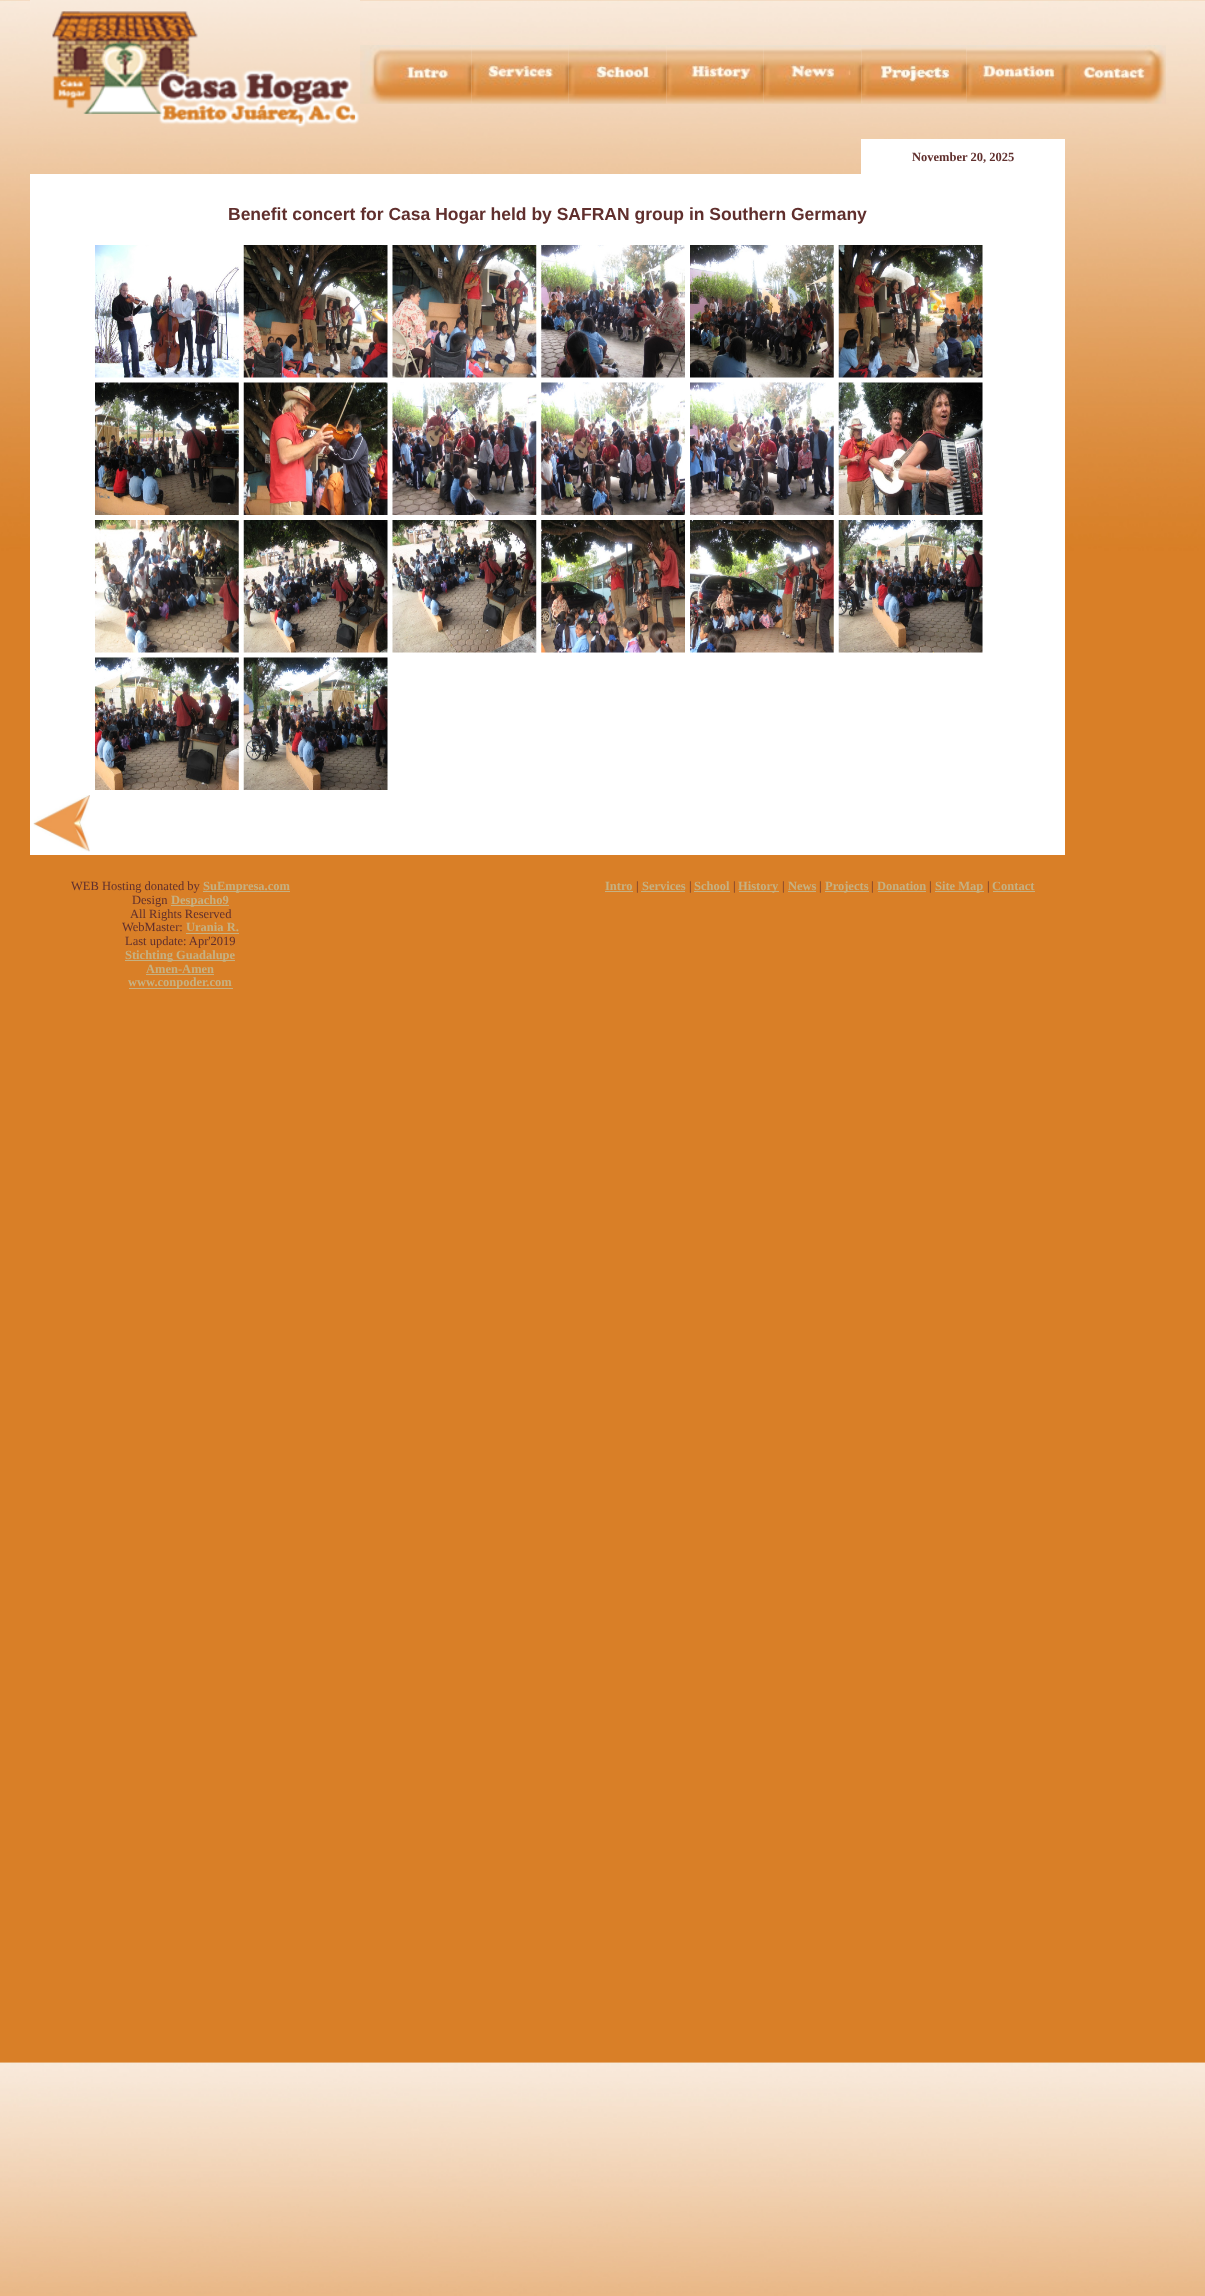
<svg xmlns="http://www.w3.org/2000/svg" width="1205" height="2296" viewBox="0 0 1205 2296">
  <rect width="100%" height="100%" fill="rgb(255,255,255)"/>
  <image x="0" y="0" width="1205" height="2296" href="pic1.png"/>
  <image x="30" y="0" width="330" height="128" href="pic2.png"/>
  <image x="360" y="45" width="112" height="59" href="pic3.png"/>
  <image x="471" y="45" width="98" height="59" href="pic4.png"/>
  <image x="568" y="45" width="99" height="59" href="pic5.png"/>
  <image x="666" y="45" width="98" height="59" href="pic6.png"/>
  <image x="763" y="45" width="99" height="59" href="pic7.png"/>
  <image x="861" y="45" width="106" height="59" href="pic8.png"/>
  <image x="966" y="45" width="99" height="59" href="pic9.png"/>
  <image x="1065" y="45" width="101" height="59" href="pic10.png"/>
  <rect x="861" y="139" width="204" height="35" fill="rgb(255,255,255)"/>
  <text x="912" y="161" font-family="Liberation Serif" font-size="12.5" font-weight="bold" fill="rgb(96,47,45)">November 20, 2025</text>
  <rect x="30" y="174" width="1035" height="681" fill="rgb(255,255,255)"/>
  <text x="228" y="220" font-family="Liberation Sans" font-size="17.5" font-weight="bold" fill="rgb(96,47,45)">Benefit concert for Casa Hogar held by SAFRAN group in Southern Germany</text>
  <image x="95" y="245" width="144" height="133" href="pic11.png"/>
  <image x="243" y="245" width="145" height="133" href="pic12.png"/>
  <image x="392" y="245" width="145" height="133" href="pic13.png"/>
  <image x="541" y="245" width="144" height="133" href="pic14.png"/>
  <image x="690" y="245" width="144" height="133" href="pic15.png"/>
  <image x="838" y="245" width="145" height="133" href="pic16.png"/>
  <image x="95" y="382" width="144" height="133" href="pic17.png"/>
  <image x="243" y="382" width="145" height="133" href="pic18.png"/>
  <image x="392" y="382" width="145" height="133" href="pic19.png"/>
  <image x="541" y="382" width="144" height="133" href="pic20.png"/>
  <image x="690" y="382" width="144" height="133" href="pic21.png"/>
  <image x="838" y="382" width="145" height="133" href="pic22.png"/>
  <image x="95" y="520" width="144" height="133" href="pic23.png"/>
  <image x="243" y="520" width="145" height="133" href="pic24.png"/>
  <image x="392" y="520" width="145" height="133" href="pic25.png"/>
  <image x="541" y="520" width="144" height="133" href="pic26.png"/>
  <image x="690" y="520" width="144" height="133" href="pic27.png"/>
  <image x="838" y="520" width="145" height="133" href="pic28.png"/>
  <image x="95" y="657" width="144" height="133" href="pic29.png"/>
  <image x="243" y="657" width="145" height="133" href="pic30.png"/>
  <image x="33" y="795" width="57" height="57" href="pic31.png"/>
  <text x="71" y="890" font-family="Liberation Serif" font-size="12.5" fill="rgb(96,47,45)">WEB Hosting donated by</text>
  <rect x="203" y="891" width="87" height="1" fill="rgb(198,177,130)"/>
  <text x="203" y="890" font-family="Liberation Serif" font-size="12.5" font-weight="bold" fill="rgb(198,177,130)">SuEmpresa.com</text>
  <text x="132" y="904" font-family="Liberation Serif" font-size="12.5" fill="rgb(96,47,45)">Design</text>
  <rect x="171" y="905" width="58" height="1" fill="rgb(198,177,130)"/>
  <text x="171" y="904" font-family="Liberation Serif" font-size="12.5" font-weight="bold" fill="rgb(198,177,130)">Despacho9</text>
  <g font-family="Liberation Serif" font-size="12.5" fill="rgb(96,47,45)">
    <text x="130" y="918">All Rights Reserved</text>
    <text x="122" y="931">WebMaster:</text>
  </g>
  <text x="186" y="931" font-family="Liberation Serif" font-size="12.5" font-weight="bold" fill="rgb(198,177,130)">Urania R.</text>
  <rect x="186" y="933" width="53" height="1" fill="rgb(198,177,130)"/>
  <text x="125" y="945" font-family="Liberation Serif" font-size="12.5" fill="rgb(96,47,45)">Last update: Apr'2019</text>
  <rect x="125" y="960" width="110" height="1" fill="rgb(198,177,130)"/>
  <g font-family="Liberation Serif" font-size="12.5" font-weight="bold" fill="rgb(198,177,130)">
    <text x="125" y="959">Stichting Guadalupe</text>
    <text x="146" y="973">Amen-Amen</text>
  </g>
  <rect x="146" y="974" width="68" height="1" fill="rgb(198,177,130)"/>
  <rect x="129" y="988" width="104" height="1" fill="rgb(198,177,130)"/>
  <g font-family="Liberation Serif" font-size="12.5" font-weight="bold" fill="rgb(198,177,130)">
    <text x="128" y="986">www.conpoder.com</text>
    <text x="605" y="890">Intro</text>
  </g>
  <rect x="605" y="891" width="28" height="1" fill="rgb(198,177,130)"/>
  <text x="636" y="890" font-family="Liberation Serif" font-size="12.5" fill="rgb(96,47,45)">|</text>
  <text x="642" y="890" font-family="Liberation Serif" font-size="12.5" font-weight="bold" fill="rgb(198,177,130)">Services</text>
  <rect x="641" y="891" width="44" height="1" fill="rgb(198,177,130)"/>
  <text x="689" y="890" font-family="Liberation Serif" font-size="12.5" fill="rgb(96,47,45)">|</text>
  <text x="694" y="890" font-family="Liberation Serif" font-size="12.5" font-weight="bold" fill="rgb(198,177,130)">School</text>
  <rect x="694" y="891" width="36" height="1" fill="rgb(198,177,130)"/>
  <text x="733" y="890" font-family="Liberation Serif" font-size="12.5" fill="rgb(96,47,45)">|</text>
  <rect x="739" y="891" width="40" height="1" fill="rgb(198,177,130)"/>
  <text x="738" y="890" font-family="Liberation Serif" font-size="12.5" font-weight="bold" fill="rgb(198,177,130)">History</text>
  <text x="782" y="890" font-family="Liberation Serif" font-size="12.5" fill="rgb(96,47,45)">|</text>
  <text x="788" y="890" font-family="Liberation Serif" font-size="12.5" font-weight="bold" fill="rgb(198,177,130)">News</text>
  <rect x="788" y="891" width="28" height="1" fill="rgb(198,177,130)"/>
  <text x="819" y="890" font-family="Liberation Serif" font-size="12.5" fill="rgb(96,47,45)">|</text>
  <rect x="825" y="891" width="44" height="1" fill="rgb(198,177,130)"/>
  <text x="825" y="890" font-family="Liberation Serif" font-size="12.5" font-weight="bold" fill="rgb(198,177,130)">Projects</text>
  <text x="871" y="890" font-family="Liberation Serif" font-size="12.5" fill="rgb(96,47,45)">|</text>
  <text x="877" y="890" font-family="Liberation Serif" font-size="12.5" font-weight="bold" fill="rgb(198,177,130)">Donation</text>
  <rect x="878" y="891" width="48" height="1" fill="rgb(198,177,130)"/>
  <text x="929" y="890" font-family="Liberation Serif" font-size="12.5" fill="rgb(96,47,45)">|</text>
  <rect x="935" y="891" width="49" height="1" fill="rgb(198,177,130)"/>
  <text x="935" y="890" font-family="Liberation Serif" font-size="12.5" font-weight="bold" fill="rgb(198,177,130)">Site Map</text>
  <text x="987" y="890" font-family="Liberation Serif" font-size="12.5" fill="rgb(96,47,45)">|</text>
  <text x="992" y="890" font-family="Liberation Serif" font-size="12.5" font-weight="bold" fill="rgb(198,177,130)">Contact</text>
  <rect x="993" y="891" width="42" height="1" fill="rgb(198,177,130)"/>
</svg>
